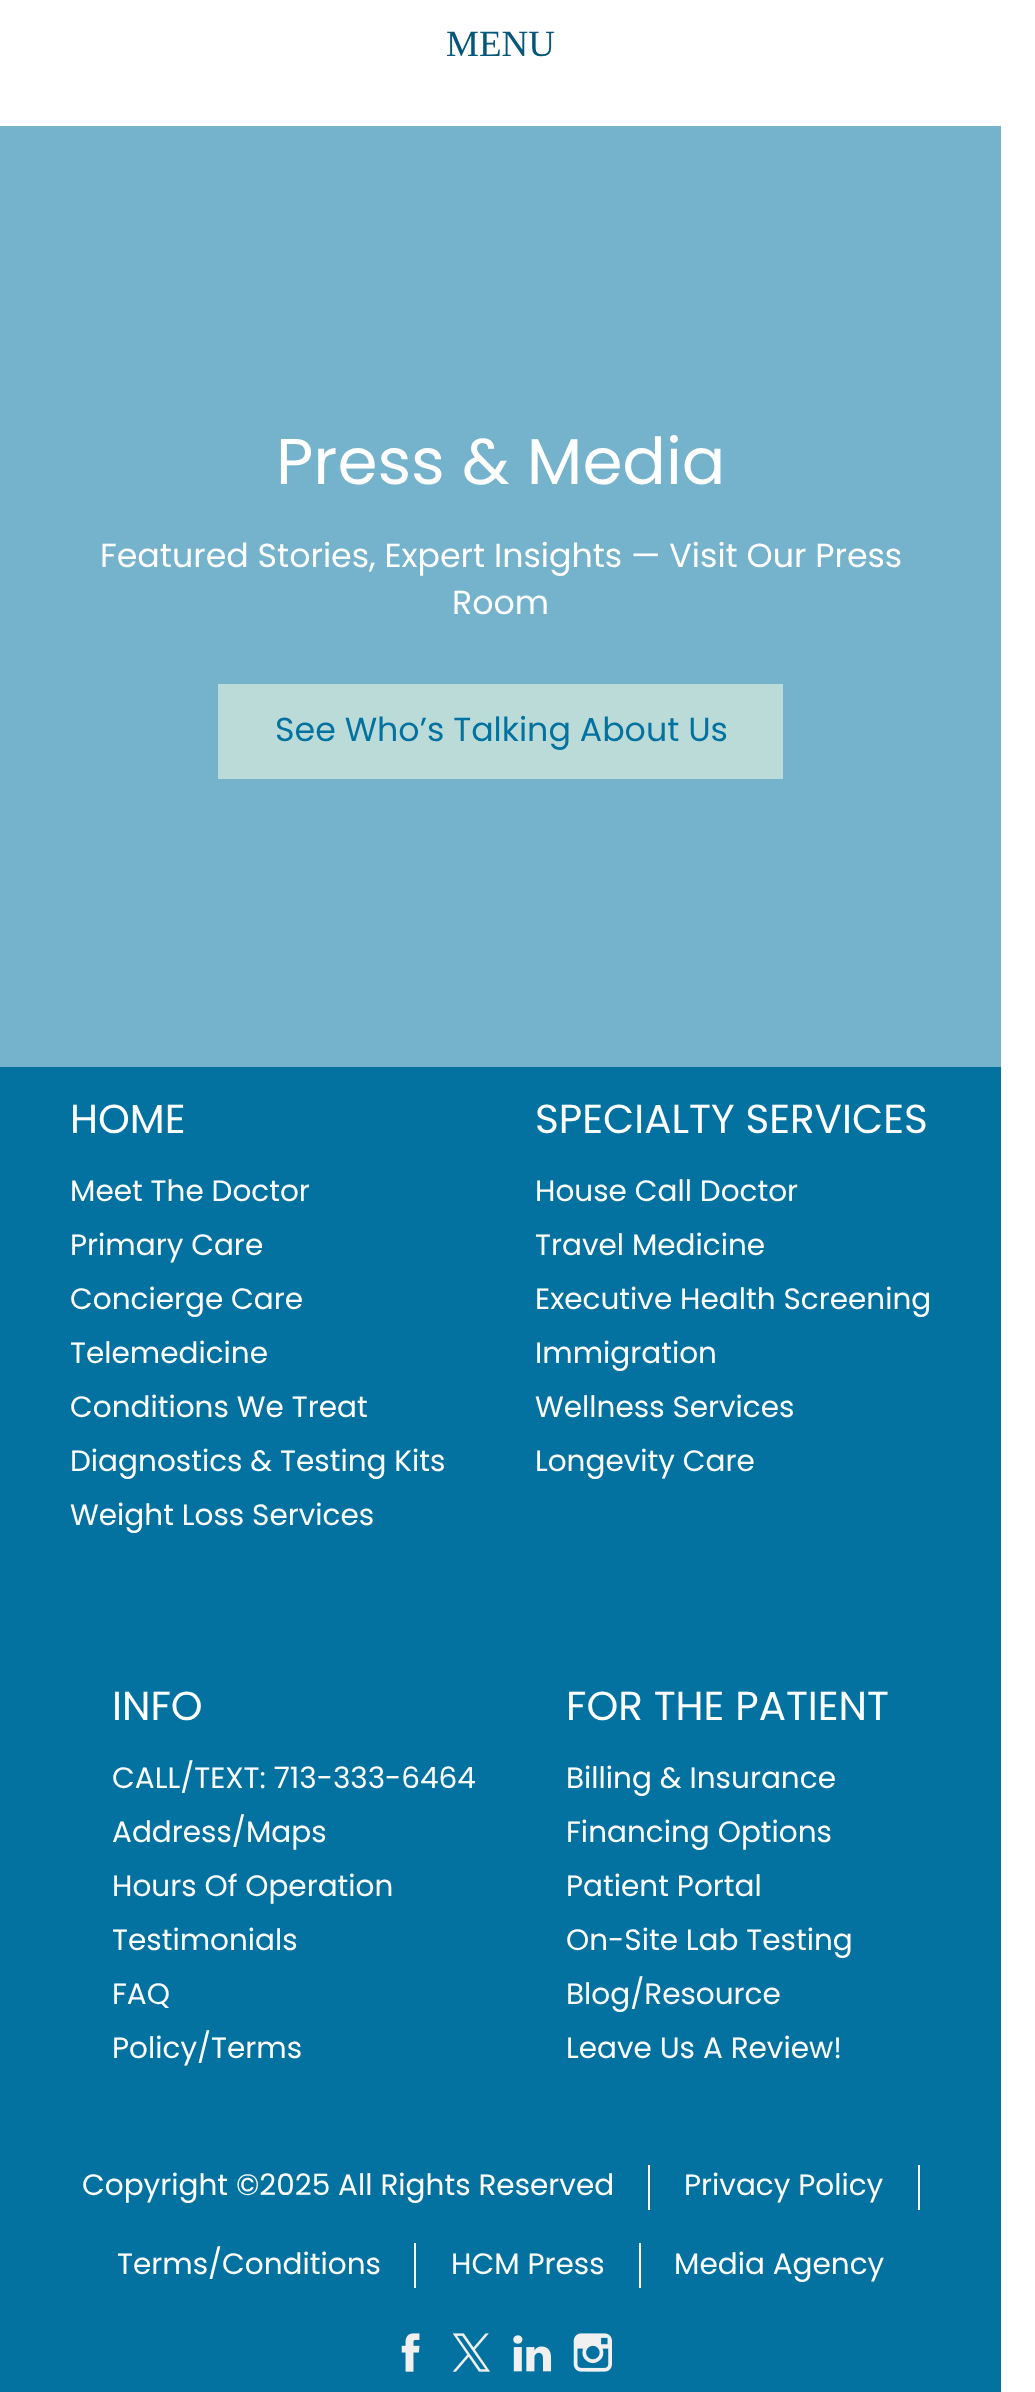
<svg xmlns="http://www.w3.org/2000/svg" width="1035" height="2392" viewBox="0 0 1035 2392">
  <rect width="100%" height="100%" fill="rgb(255,255,255)"/>
  <text x="446" y="56" font-family="Liberation Serif" font-size="37" fill="rgb(4,87,122)">MENU</text>
  <rect x="0" y="126" width="1001" height="941" fill="rgb(117,178,203)"/>
  <text x="276" y="484" font-family="Poppins" font-size="64.5" fill="rgb(255,255,255)">Press &amp; Media</text>
  <g font-family="Poppins" font-size="33.25" fill="rgb(255,255,255)">
    <text x="100" y="567">Featured Stories, Expert Insights — Visit Our Press</text>
    <text x="452" y="614">Room</text>
  </g>
  <rect x="218" y="684" width="565" height="95" fill="rgb(187,219,216)"/>
  <text x="275" y="741" font-family="Poppins" font-size="33.25" fill="rgb(3,114,160)">See Who’s Talking About Us</text>
  <rect x="0" y="1067" width="1001" height="1325" fill="rgb(3,114,160)"/>
  <text x="70" y="1133" font-family="Poppins" font-size="40.5" fill="rgb(255,255,255)">HOME</text>
  <g font-family="Poppins" font-size="29.5" fill="rgb(255,255,255)">
    <text>
      <tspan x="70" y="1201">Meet The Doctor</tspan>
      <tspan x="70" y="1255">Primary Care</tspan>
      <tspan x="70" y="1309">Concierge Care</tspan>
      <tspan x="70" y="1363">Telemedicine</tspan>
      <tspan x="70" y="1417">Conditions We Treat</tspan>
      <tspan x="70" y="1471">Diagnostics &amp; Testing Kits</tspan>
      <tspan x="70" y="1525">Weight Loss Services</tspan>
    </text>
  </g>
  <text x="535" y="1133" font-family="Poppins" font-size="40.5" fill="rgb(255,255,255)">SPECIALTY SERVICES</text>
  <g font-family="Poppins" font-size="29.5" fill="rgb(255,255,255)">
    <text>
      <tspan x="535" y="1201">House Call Doctor</tspan>
      <tspan x="535" y="1255">Travel Medicine</tspan>
      <tspan x="535" y="1309">Executive Health Screening</tspan>
      <tspan x="535" y="1363">Immigration</tspan>
      <tspan x="535" y="1417">Wellness Services</tspan>
      <tspan x="535" y="1471">Longevity Care</tspan>
    </text>
  </g>
  <text x="112" y="1720" font-family="Poppins" font-size="40.5" fill="rgb(255,255,255)">INFO</text>
  <g font-family="Poppins" font-size="29.5" fill="rgb(255,255,255)">
    <text>
      <tspan x="112" y="1788">CALL/TEXT: 713-333-6464</tspan>
      <tspan x="112" y="1842">Address/Maps</tspan>
      <tspan x="112" y="1896">Hours Of Operation</tspan>
      <tspan x="112" y="1950">Testimonials</tspan>
      <tspan x="112" y="2004">FAQ</tspan>
      <tspan x="112" y="2058">Policy/Terms</tspan>
    </text>
  </g>
  <text x="566" y="1720" font-family="Poppins" font-size="40.5" fill="rgb(255,255,255)">FOR THE PATIENT</text>
  <g font-family="Poppins" font-size="29.5" fill="rgb(255,255,255)">
    <text>
      <tspan x="566" y="1788">Billing &amp; Insurance</tspan>
      <tspan x="566" y="1842">Financing Options</tspan>
      <tspan x="566" y="1896">Patient Portal</tspan>
      <tspan x="566" y="1950">On-Site Lab Testing</tspan>
      <tspan x="566" y="2004">Blog/Resource</tspan>
      <tspan x="566" y="2058">Leave Us A Review!</tspan>
    </text>
    <text x="82" y="2195">Copyright ©2025 All Rights Reserved</text>
  </g>
  <rect x="648" y="2165" width="2" height="45" fill="rgb(255,255,255)"/>
  <text x="684" y="2195" font-family="Poppins" font-size="29.5" fill="rgb(255,255,255)">Privacy Policy</text>
  <rect x="918" y="2165" width="2" height="45" fill="rgb(255,255,255)"/>
  <text x="117" y="2274" font-family="Poppins" font-size="29.5" fill="rgb(255,255,255)">Terms/Conditions</text>
  <rect x="414" y="2243" width="2" height="45" fill="rgb(255,255,255)"/>
  <text x="451" y="2274" font-family="Poppins" font-size="29.5" fill="rgb(255,255,255)">HCM Press</text>
  <rect x="639" y="2243" width="2" height="45" fill="rgb(255,255,255)"/>
  <text x="674" y="2274" font-family="Poppins" font-size="29.5" fill="rgb(255,255,255)">Media Agency</text>
  <image x="401" y="2333" width="19" height="39" href="pic1.png"/>
  <image x="452" y="2333" width="38" height="39" href="pic2.png"/>
  <image x="513" y="2335" width="39" height="37" href="pic3.png"/>
  <image x="573" y="2333" width="39" height="39" href="pic4.png"/>
</svg>
